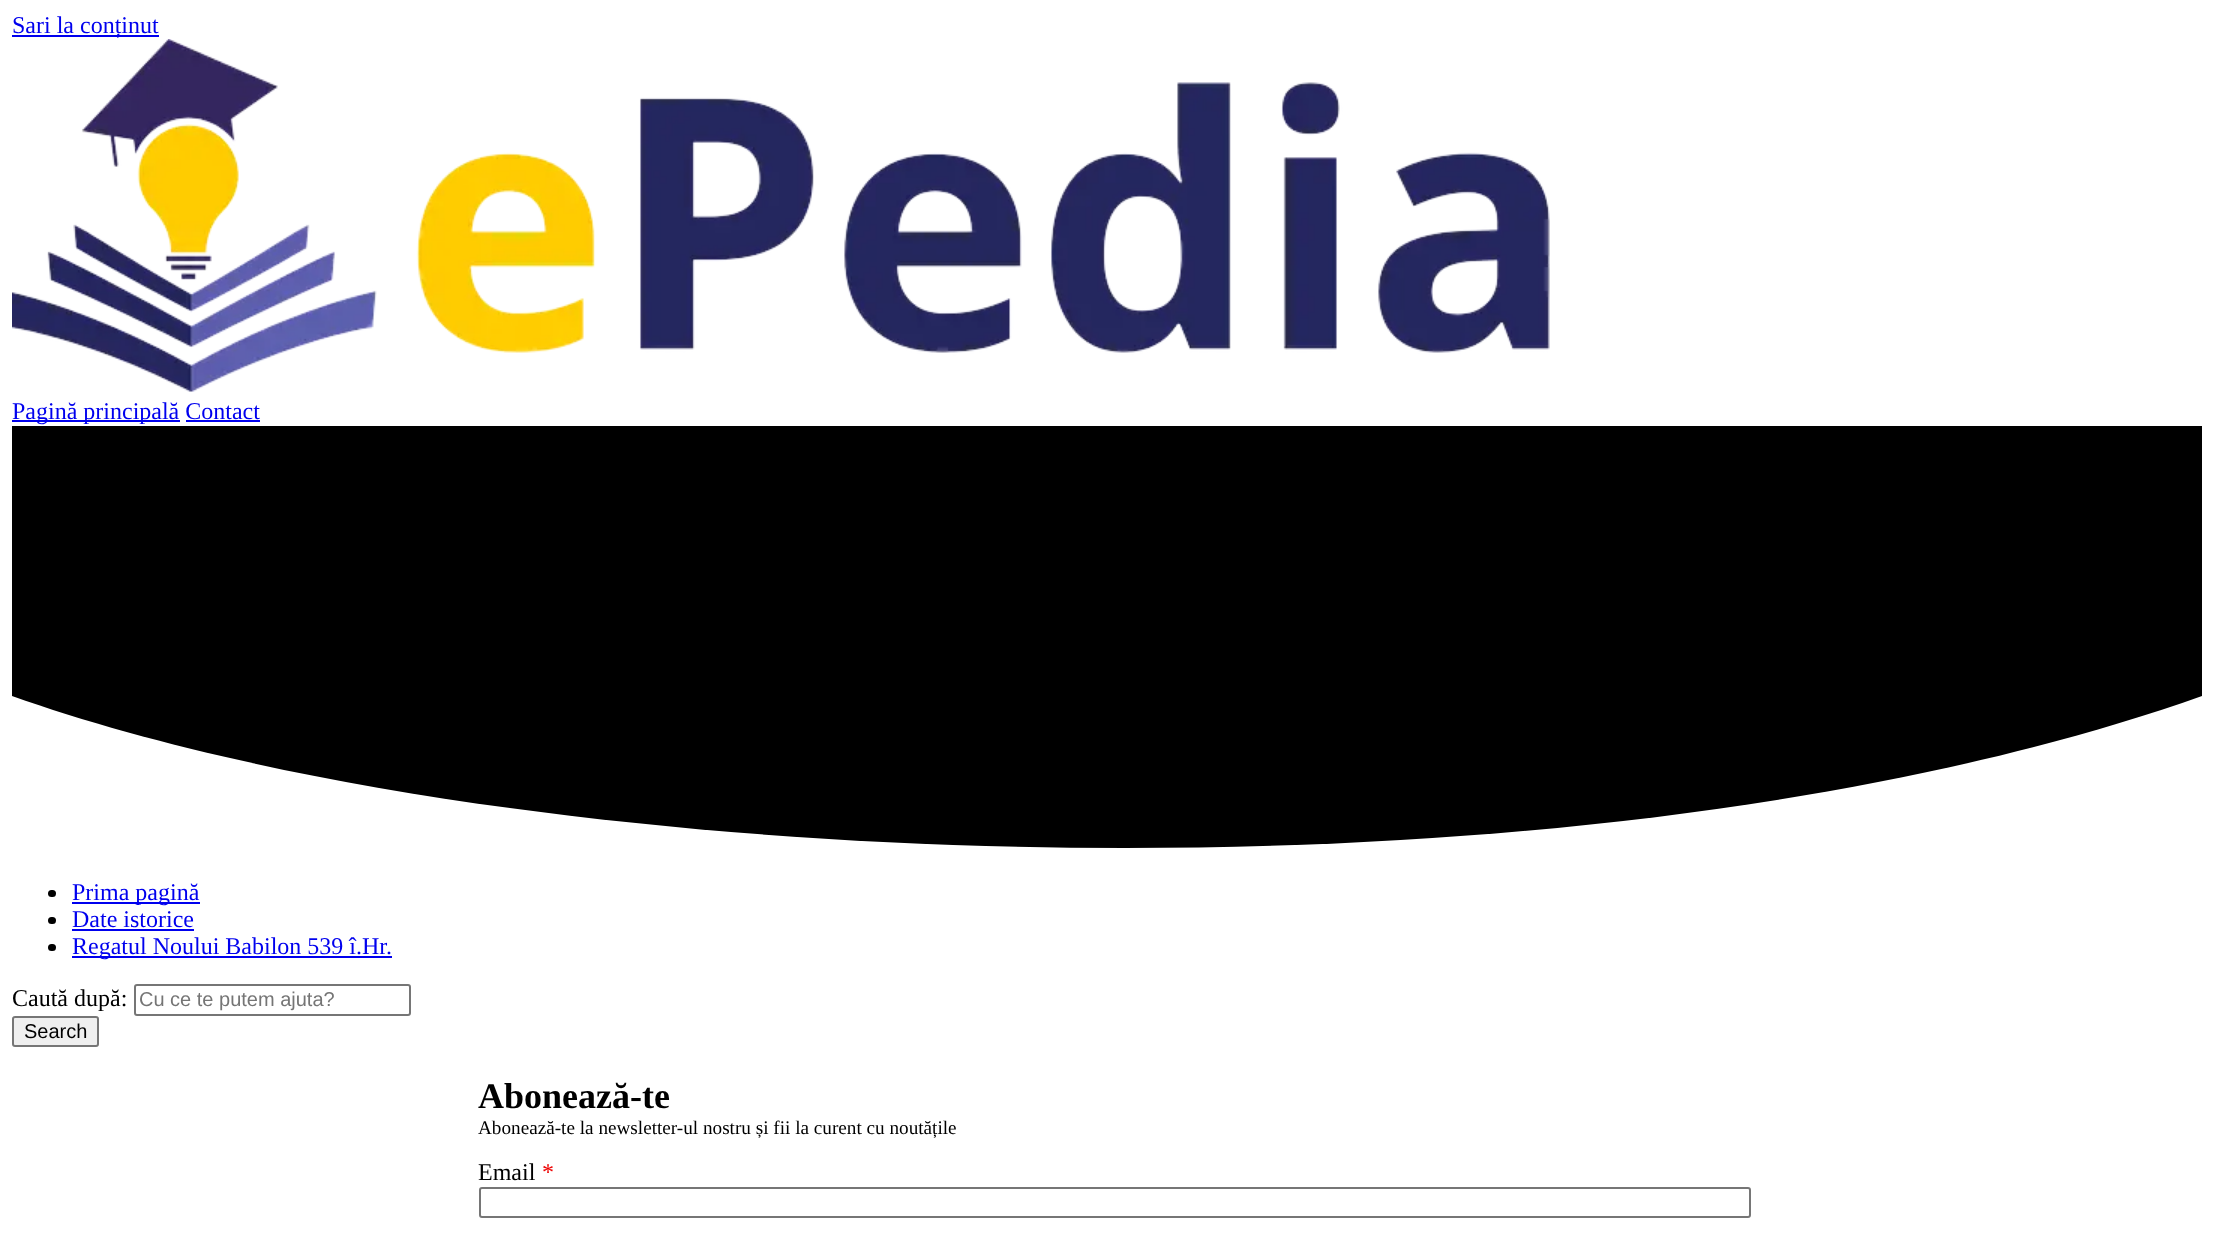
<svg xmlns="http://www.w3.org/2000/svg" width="2215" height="1242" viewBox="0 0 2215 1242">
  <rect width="100%" height="100%" fill="rgb(255,255,255)"/>
  <rect x="12" y="35" width="147" height="2" fill="rgb(0,0,238)"/>
  <text x="12" y="33" font-family="Liberation Serif" font-size="24" fill="rgb(0,0,238)">Sari la conținut</text>
  <image x="12" y="39" width="1538" height="353" href="pic1.png"/>
  <rect x="12" y="420" width="168" height="2" fill="rgb(0,0,238)"/>
  <text x="12" y="419" font-family="Liberation Serif" font-size="24" fill="rgb(0,0,238)">Pagină principală Contact</text>
  <rect x="186" y="420" width="74" height="2" fill="rgb(0,0,238)"/>
  <path d="M12 696V426H2202V696C1941 789 1566 848 1125 848C685 848 273 789 12 696Z" fill="rgb(0,0,0)"/>
  <rect x="48" y="890" width="8" height="7" rx="3.5" fill="rgb(0,0,0)"/>
  <rect x="72" y="902" width="128" height="2" fill="rgb(0,0,238)"/>
  <text x="72" y="900" font-family="Liberation Serif" font-size="24" fill="rgb(0,0,238)">Prima pagină</text>
  <rect x="48" y="917" width="8" height="7" rx="3.5" fill="rgb(0,0,0)"/>
  <text x="72" y="927" font-family="Liberation Serif" font-size="24" fill="rgb(0,0,238)">Date istorice</text>
  <rect x="72" y="929" width="122" height="2" fill="rgb(0,0,238)"/>
  <rect x="48" y="944" width="8" height="7" rx="3.5" fill="rgb(0,0,0)"/>
  <rect x="72" y="956" width="320" height="2" fill="rgb(0,0,238)"/>
  <text x="72" y="954" font-family="Liberation Serif" font-size="24" fill="rgb(0,0,238)">Regatul Noului Babilon 539 î.Hr.</text>
  <text x="12" y="1006" font-family="Liberation Serif" font-size="24" fill="rgb(0,0,0)">Caută după:</text>
  <rect x="135" y="985" width="275" height="30" rx="2" fill="none" stroke="rgb(118,118,118)" stroke-width="2"/>
  <text x="139" y="1006" font-family="Liberation Sans" font-size="20" fill="rgb(117,117,117)">Cu ce te putem ajuta?</text>
  <rect x="13" y="1017" width="85" height="29" rx="2" fill="rgb(239,239,239)" stroke="rgb(118,118,118)" stroke-width="2"/>
  <text x="24" y="1038" font-family="Liberation Sans" font-size="20" fill="rgb(0,0,0)">Search</text>
  <text x="478" y="1108" font-family="Liberation Serif" font-size="36" font-weight="bold" fill="rgb(0,0,0)">Abonează-te</text>
  <text x="478" y="1134" font-family="Liberation Serif" font-size="19.2" fill="rgb(0,0,0)">Abonează-te la newsletter-ul nostru și fii la curent cu noutățile</text>
  <text x="478" y="1180" font-family="Liberation Serif" font-size="24" fill="rgb(0,0,0)">Email</text>
  <text x="542" y="1180" font-family="Liberation Serif" font-size="24" fill="rgb(238,0,0)">*</text>
  <rect x="480" y="1188" width="1270" height="29" rx="2" fill="none" stroke="rgb(118,118,118)" stroke-width="2"/>
</svg>
